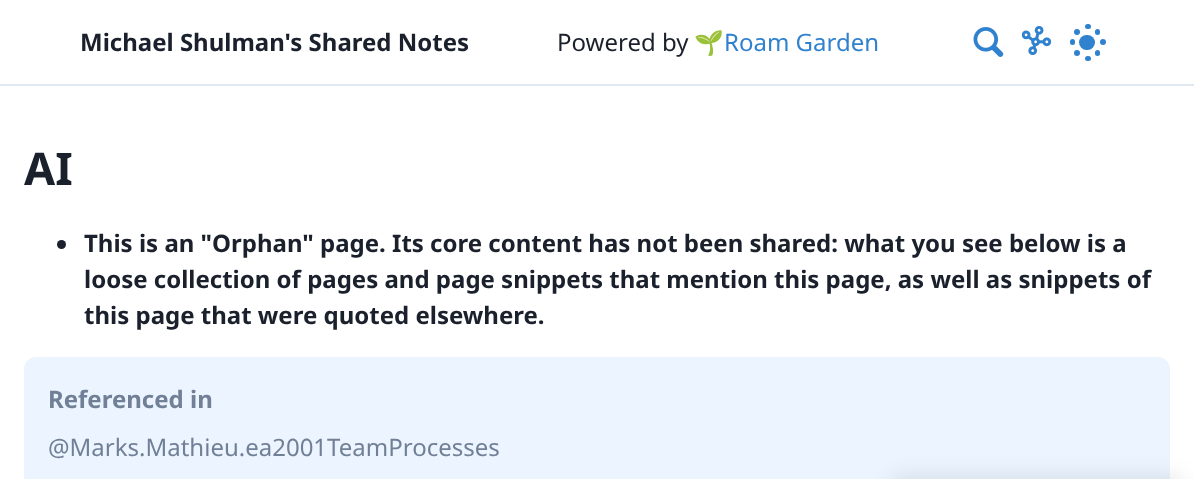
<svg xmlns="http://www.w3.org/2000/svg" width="1194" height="479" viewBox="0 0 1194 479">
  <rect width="100%" height="100%" fill="rgb(255,255,255)"/>
  <rect x="0" y="84" width="1194" height="2" fill="rgb(226,232,240)"/>
  <text x="80" y="51" font-family="Noto Sans" font-size="24" font-weight="bold" fill="rgb(26,32,44)">Michael Shulman's Shared Notes</text>
  <text x="557" y="51" font-family="Noto Sans" font-size="24" fill="rgb(26,32,44)">Powered by</text>
  <text x="694" y="51" font-family="Noto Color Emoji" font-size="24" fill="rgb(49,130,206)">🌱</text>
  <text x="724" y="51" font-family="Noto Sans" font-size="24" fill="rgb(49,130,206)">Roam Garden</text>
  <image x="973" y="27" width="31" height="30" href="pic1.png"/>
  <image x="1022" y="26" width="30" height="30" href="pic2.png"/>
  <circle cx="1077" cy="32" r="3" fill="rgb(49,130,206)"/>
  <rect x="1095" y="29" width="5" height="6" rx="2.5" fill="rgb(49,130,206)"/>
  <circle cx="1077" cy="53" r="3" fill="rgb(49,130,206)"/>
  <rect x="1095" y="50" width="5" height="6" rx="2.5" fill="rgb(49,130,206)"/>
  <rect x="1070" y="39" width="5" height="6" rx="2.5" fill="rgb(49,130,206)"/>
  <circle cx="1103" cy="42" r="3" fill="rgb(49,130,206)"/>
  <rect x="1085" y="56" width="6" height="5" rx="2.5" fill="rgb(49,130,206)"/>
  <rect x="1085" y="24" width="6" height="5" rx="2.5" fill="rgb(49,130,206)"/>
  <rect x="1079" y="35" width="16" height="15" rx="7.5" fill="rgb(49,130,206)"/>
  <text x="24" y="185" font-family="Noto Sans" font-size="45" font-weight="bold" fill="rgb(26,32,44)">AI</text>
  <circle cx="61.5" cy="244.5" r="4.5" fill="rgb(26,32,44)"/>
  <g font-family="Noto Sans" font-size="24" font-weight="bold" fill="rgb(26,32,44)">
    <text>
      <tspan x="84" y="252">This is an "Orphan" page. Its core content has not been shared: what you see below is a</tspan>
      <tspan x="84" y="288">loose collection of pages and page snippets that mention this page, as well as snippets of</tspan>
      <tspan x="84" y="324">this page that were quoted elsewhere.</tspan>
    </text>
  </g>
  <path d="M36 357H1158C1164.5 357 1170 362.5 1170 369V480H24V369C24 362.5 29.5 357 36 357Z" fill="rgb(235,244,255)"/>
  <text x="48" y="408" font-family="Noto Sans" font-size="24" font-weight="bold" fill="rgb(113,128,150)">Referenced in</text>
  <text x="48" y="456" font-family="Noto Sans" font-size="24" fill="rgb(113,128,150)">@Marks.Mathieu.ea2001TeamProcesses</text>
  <rect x="891" y="477" width="291" height="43" rx="8" fill="rgba(0,0,0,0.1)" filter="blur(11px)"/>
</svg>
